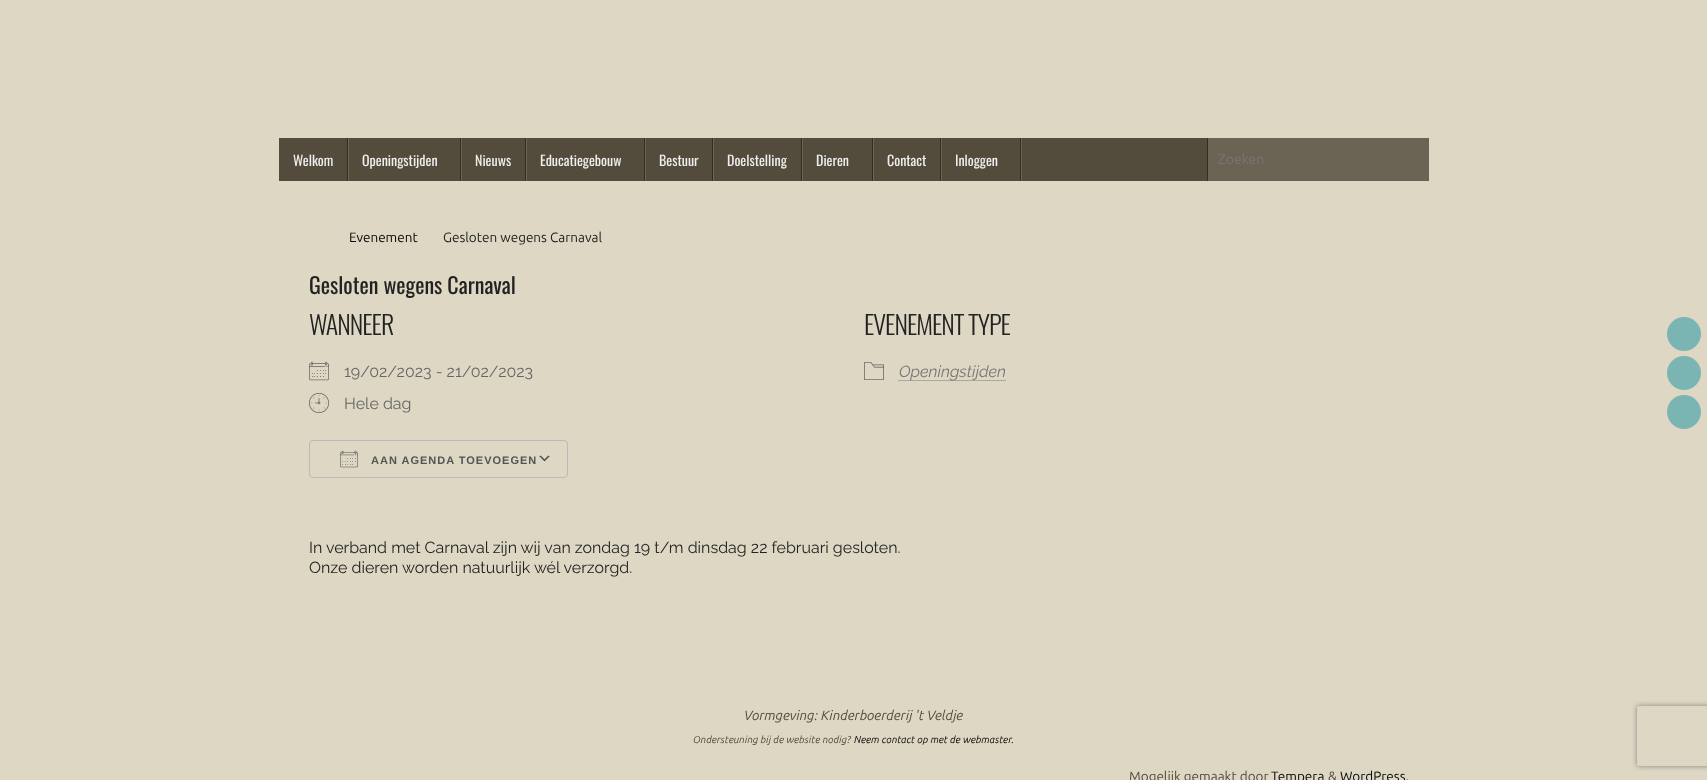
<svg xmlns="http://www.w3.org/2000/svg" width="1707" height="780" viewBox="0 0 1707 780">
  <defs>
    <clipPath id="clip1"><path d="M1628 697H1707V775H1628ZM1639 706H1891C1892 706 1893 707 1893 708V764C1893 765 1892 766 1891 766H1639C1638 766 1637 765 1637 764V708C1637 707 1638 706 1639 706Z" clip-rule="evenodd"/></clipPath>
  </defs>
  <rect width="100%" height="100%" fill="rgb(221,215,195)"/>
  <rect x="279" y="138" width="928" height="43" fill="rgb(83,76,60)"/>
  <rect x="348" y="138" width="1" height="43" fill="rgb(107,100,84)"/>
  <rect x="347" y="138" width="1" height="43" fill="rgb(53,46,30)"/>
  <text x="293" y="166" font-family="Oswald" font-size="14" fill="rgb(238,238,238)">Welkom</text>
  <rect x="461" y="138" width="1" height="43" fill="rgb(107,100,84)"/>
  <rect x="460" y="138" width="1" height="43" fill="rgb(53,46,30)"/>
  <text x="362" y="166" font-family="Oswald" font-size="14" fill="rgb(238,238,238)">Openingstijden</text>
  <rect x="526" y="138" width="1" height="43" fill="rgb(107,100,84)"/>
  <rect x="525" y="138" width="1" height="43" fill="rgb(53,46,30)"/>
  <text x="475" y="166" font-family="Oswald" font-size="14" fill="rgb(238,238,238)">Nieuws</text>
  <rect x="645" y="138" width="1" height="43" fill="rgb(107,100,84)"/>
  <rect x="644" y="138" width="1" height="43" fill="rgb(53,46,30)"/>
  <text x="540" y="166" font-family="Oswald" font-size="14" fill="rgb(238,238,238)">Educatiegebouw</text>
  <rect x="713" y="138" width="1" height="43" fill="rgb(107,100,84)"/>
  <rect x="712" y="138" width="1" height="43" fill="rgb(53,46,30)"/>
  <text x="659" y="166" font-family="Oswald" font-size="14" fill="rgb(238,238,238)">Bestuur</text>
  <rect x="802" y="138" width="1" height="43" fill="rgb(107,100,84)"/>
  <rect x="801" y="138" width="1" height="43" fill="rgb(53,46,30)"/>
  <text x="727" y="166" font-family="Oswald" font-size="14" fill="rgb(238,238,238)">Doelstelling</text>
  <rect x="873" y="138" width="1" height="43" fill="rgb(107,100,84)"/>
  <rect x="872" y="138" width="1" height="43" fill="rgb(53,46,30)"/>
  <text x="816" y="166" font-family="Oswald" font-size="14" fill="rgb(238,238,238)">Dieren</text>
  <rect x="941" y="138" width="1" height="43" fill="rgb(107,100,84)"/>
  <rect x="940" y="138" width="1" height="43" fill="rgb(53,46,30)"/>
  <text x="887" y="166" font-family="Oswald" font-size="14" fill="rgb(238,238,238)">Contact</text>
  <rect x="1021" y="138" width="1" height="43" fill="rgb(107,100,84)"/>
  <rect x="1020" y="138" width="1" height="43" fill="rgb(53,46,30)"/>
  <text x="955" y="166" font-family="Oswald" font-size="14" fill="rgb(238,238,238)">Inloggen</text>
  <rect x="1208" y="138" width="221" height="43" fill="rgb(107,100,84)"/>
  <rect x="1207" y="138" width="1" height="43" fill="rgb(53,46,30)"/>
  <text x="1218" y="164" font-family="Ubuntu" font-size="14" fill="rgb(117,117,117)">Zoeken</text>
  <text x="349" y="242" font-family="Ubuntu" font-size="13.5" fill="rgb(7,7,7)">Evenement</text>
  <text x="443" y="242" font-family="Ubuntu" font-size="13.5" fill="rgb(34,34,34)">Gesloten wegens Carnaval</text>
  <text x="309" y="294" font-family="Oswald" font-size="22" fill="rgb(34,34,34)">Gesloten wegens Carnaval</text>
  <text x="309" y="335" font-family="Oswald" font-size="26" font-weight="300" letter-spacing="-1" fill="rgb(34,34,34)">WANNEER</text>
  <image x="309" y="361" width="20" height="20" href="pic1.png"/>
  <text x="344" y="377" font-family="Raleway" font-size="16" fill="rgb(102,102,102)">19/02/2023 - 21/02/2023</text>
  <image x="309" y="393" width="20" height="20" href="pic2.png"/>
  <text x="344" y="409" font-family="Raleway" font-size="16" fill="rgb(102,102,102)">Hele dag</text>
  <image x="539" y="455" width="11" height="7" href="pic3.png"/>
  <rect x="309.5" y="440.5" width="258" height="37" rx="3.5" fill="none" stroke="rgb(186,186,186)"/>
  <image x="340" y="450" width="18" height="18" href="pic4.png"/>
  <text x="371" y="464" font-family="Liberation Sans" font-size="11" font-weight="bold" letter-spacing="1" fill="rgb(84,84,84)">AAN AGENDA TOEVOEGEN</text>
  <text x="864" y="335" font-family="Oswald" font-size="26" font-weight="300" letter-spacing="-1" fill="rgb(34,34,34)">EVENEMENT TYPE</text>
  <image x="864" y="362" width="20" height="18" href="pic5.png"/>
  <path d="M898.5 380.5H1005.5" fill="none" stroke="rgb(120,120,120)" stroke-dasharray="1 1"/>
  <text x="899" y="377" font-family="Raleway" font-size="16" font-style="italic" fill="rgb(117,117,117)">Openingstijden</text>
  <g font-family="Raleway" font-size="16" fill="rgb(34,34,34)">
    <text>
      <tspan x="309" y="553">In verband met Carnaval zijn wij van zondag 19 t/m dinsdag 22 februari gesloten.</tspan>
      <tspan x="309" y="573">Onze dieren worden natuurlijk wél verzorgd.</tspan>
    </text>
  </g>
  <text x="744" y="720" font-family="Ubuntu" font-size="13.5" font-style="italic" fill="rgb(83,76,60)">Vormgeving: Kinderboerderij 't Veldje</text>
  <text x="693" y="743" font-family="Ubuntu" font-size="10" font-style="italic" fill="rgb(83,76,60)">Ondersteuning bij de website nodig?</text>
  <text x="854" y="743" font-family="Ubuntu" font-size="10" font-style="italic" fill="rgb(7,7,7)">Neem contact op met de webmaster.</text>
  <text x="1129" y="781" font-family="Ubuntu" font-size="13.5" fill="rgb(83,76,60)">Mogelijk gemaakt door</text>
  <text x="1271" y="781" font-family="Ubuntu" font-size="13.5" fill="rgb(7,7,7)">Tempera</text>
  <text x="1328" y="781" font-family="Ubuntu" font-size="13.5" fill="rgb(83,76,60)">&amp;</text>
  <text x="1340" y="781" font-family="Ubuntu" font-size="13.5" fill="rgb(7,7,7)">WordPress.</text>
  <circle cx="1684" cy="334" r="17" fill="rgb(122,181,180)"/>
  <circle cx="1684" cy="373" r="17" fill="rgb(122,181,180)"/>
  <circle cx="1684" cy="412" r="17" fill="rgb(122,181,180)"/>
  <g clip-path="url(#clip1)">
    <rect x="1637" y="706" width="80" height="60" rx="2" fill="rgb(128,128,128)" filter="blur(2.5px)"/>
  </g>
</svg>
